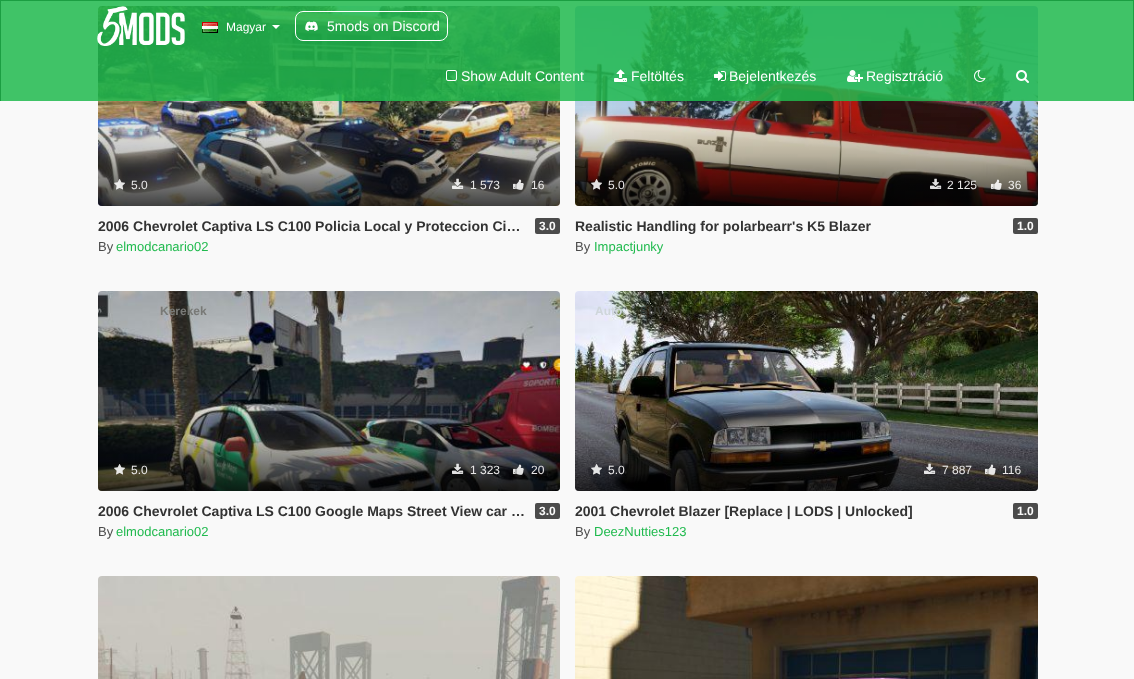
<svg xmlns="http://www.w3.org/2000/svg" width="1134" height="679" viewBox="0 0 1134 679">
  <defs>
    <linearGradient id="g1" gradientUnits="userSpaceOnUse" x1="329" y1="6" x2="329" y2="206"><stop offset="0.5" stop-color="rgb(0,0,0)" stop-opacity="0"/><stop offset="0.75" stop-color="rgb(0,0,0)" stop-opacity="0.25"/><stop offset="1" stop-color="rgb(0,0,0)" stop-opacity="0.75"/></linearGradient>
    <linearGradient id="g2" gradientUnits="userSpaceOnUse" x1="807" y1="6" x2="807" y2="206"><stop offset="0.5" stop-color="rgb(0,0,0)" stop-opacity="0"/><stop offset="0.75" stop-color="rgb(0,0,0)" stop-opacity="0.25"/><stop offset="1" stop-color="rgb(0,0,0)" stop-opacity="0.75"/></linearGradient>
    <linearGradient id="g3" gradientUnits="userSpaceOnUse" x1="329" y1="291" x2="329" y2="491"><stop offset="0.5" stop-color="rgb(0,0,0)" stop-opacity="0"/><stop offset="0.75" stop-color="rgb(0,0,0)" stop-opacity="0.25"/><stop offset="1" stop-color="rgb(0,0,0)" stop-opacity="0.75"/></linearGradient>
    <linearGradient id="g4" gradientUnits="userSpaceOnUse" x1="807" y1="291" x2="807" y2="491"><stop offset="0.5" stop-color="rgb(0,0,0)" stop-opacity="0"/><stop offset="0.75" stop-color="rgb(0,0,0)" stop-opacity="0.25"/><stop offset="1" stop-color="rgb(0,0,0)" stop-opacity="0.75"/></linearGradient>
  </defs>
  <rect width="100%" height="100%" fill="rgb(249,249,249)"/>
  <image x="98" y="6" width="462" height="200" href="pic10.png"/>
  <rect x="98" y="6" width="462" height="200" rx="4" fill="url(#g1)"/>
  <image x="575" y="6" width="463" height="200" href="pic14.png"/>
  <rect x="575" y="6" width="463" height="200" rx="4" fill="url(#g2)"/>
  <rect x="1" y="1" width="1132" height="100" fill="rgba(32,186,78,0.85)"/>
  <rect x="0" y="0" width="1134" height="1" fill="rgb(27,158,66)"/>
  <rect x="1133" y="0" width="1" height="101" fill="rgb(27,158,66)"/>
  <rect x="0" y="0" width="1" height="101" fill="rgb(27,158,66)"/>
  <image x="97" y="6" width="88" height="40" href="pic1.png"/>
  <image x="202" y="22" width="16" height="11" href="pic2.png"/>
  <text x="226" y="31" font-family="Liberation Sans" font-size="12" fill="rgb(255,255,255)">Magyar</text>
  <path d="M272 25H280L276 29Z" fill="rgb(255,255,255)"/>
  <rect x="295.5" y="11.5" width="152" height="29" rx="7.5" fill="none" stroke="rgb(255,255,255)"/>
  <image x="305" y="21" width="13" height="10" href="pic3.png"/>
  <text x="327" y="31" font-family="Liberation Sans" font-size="14" fill="rgb(255,255,255)">5mods on Discord</text>
  <image x="446" y="70" width="11" height="11" href="pic4.png"/>
  <text x="461" y="81" font-family="Liberation Sans" font-size="14" fill="rgb(255,255,255)">Show Adult Content</text>
  <image x="614" y="69" width="13" height="13" href="pic5.png"/>
  <text x="631" y="81" font-family="Liberation Sans" font-size="14" fill="rgb(255,255,255)">Feltöltés</text>
  <image x="714" y="71" width="12" height="10" href="pic6.png"/>
  <text x="729" y="81" font-family="Liberation Sans" font-size="14" fill="rgb(255,255,255)">Bejelentkezés</text>
  <image x="847" y="70" width="16" height="12" href="pic7.png"/>
  <text x="866" y="81" font-family="Liberation Sans" font-size="14" fill="rgb(255,255,255)">Regisztráció</text>
  <image x="974" y="70" width="12" height="12" href="pic8.png"/>
  <image x="1016" y="70" width="13" height="13" href="pic9.png"/>
  <image x="114" y="179" width="11" height="11" href="pic11.png"/>
  <text x="131" y="189" font-family="Liberation Sans" font-size="12" fill="rgb(232,231,231)">5.0</text>
  <image x="452" y="178" width="12" height="11" href="pic12.png"/>
  <text x="470" y="189" font-family="Liberation Sans" font-size="12" fill="rgb(232,231,231)">1 573</text>
  <image x="513" y="179" width="11" height="11" href="pic13.png"/>
  <text x="531" y="189" font-family="Liberation Sans" font-size="12" fill="rgb(232,231,231)">16</text>
  <text x="98" y="231" font-family="Liberation Sans" font-size="14" font-weight="bold" fill="rgb(51,51,51)">2006 Chevrolet Captiva LS C100 Policia Local y Proteccion Ci…</text>
  <rect x="535" y="218" width="25" height="16" rx="2" fill="rgb(75,75,75)"/>
  <text x="539" y="230" font-family="Liberation Sans" font-size="12" font-weight="bold" fill="rgb(249,249,249)">3.0</text>
  <text x="98" y="251" font-family="Liberation Sans" font-size="13" fill="rgb(75,75,75)">By</text>
  <text x="116" y="251" font-family="Liberation Sans" font-size="13" fill="rgb(32,186,78)">elmodcanario02</text>
  <image x="591" y="179" width="11" height="11" href="pic15.png"/>
  <text x="608" y="189" font-family="Liberation Sans" font-size="12" fill="rgb(232,231,231)">5.0</text>
  <image x="930" y="178" width="12" height="11" href="pic16.png"/>
  <text x="947" y="189" font-family="Liberation Sans" font-size="12" fill="rgb(232,231,231)">2 125</text>
  <image x="991" y="179" width="11" height="11" href="pic17.png"/>
  <text x="1008" y="189" font-family="Liberation Sans" font-size="12" fill="rgb(237,237,235)">36</text>
  <text x="575" y="231" font-family="Liberation Sans" font-size="14" font-weight="bold" fill="rgb(51,51,51)">Realistic Handling for polarbearr's K5 Blazer</text>
  <rect x="1013" y="218" width="25" height="16" rx="2" fill="rgb(75,75,75)"/>
  <text x="1017" y="230" font-family="Liberation Sans" font-size="12" font-weight="bold" fill="rgb(249,249,249)">1.0</text>
  <text x="575" y="251" font-family="Liberation Sans" font-size="13" fill="rgb(75,75,75)">By</text>
  <text x="594" y="251" font-family="Liberation Sans" font-size="13" fill="rgb(32,186,78)">Impactjunky</text>
  <image x="98" y="291" width="462" height="200" href="pic18.png"/>
  <rect x="98" y="291" width="462" height="200" rx="4" fill="url(#g3)"/>
  <text x="160" y="315" font-family="Liberation Sans" font-size="12" font-weight="bold" fill="rgb(120,121,118)">Kerekek</text>
  <image x="114" y="464" width="11" height="11" href="pic19.png"/>
  <text x="131" y="474" font-family="Liberation Sans" font-size="12" fill="rgb(232,231,231)">5.0</text>
  <image x="452" y="463" width="12" height="11" href="pic20.png"/>
  <text x="470" y="474" font-family="Liberation Sans" font-size="12" fill="rgb(232,231,231)">1 323</text>
  <image x="513" y="464" width="11" height="11" href="pic21.png"/>
  <text x="531" y="474" font-family="Liberation Sans" font-size="12" fill="rgb(232,231,231)">20</text>
  <text x="98" y="516" font-family="Liberation Sans" font-size="14" font-weight="bold" fill="rgb(51,51,51)">2006 Chevrolet Captiva LS C100 Google Maps Street View car …</text>
  <rect x="535" y="503" width="25" height="16" rx="2" fill="rgb(75,75,75)"/>
  <text x="539" y="515" font-family="Liberation Sans" font-size="12" font-weight="bold" fill="rgb(249,249,249)">3.0</text>
  <text x="98" y="536" font-family="Liberation Sans" font-size="13" fill="rgb(75,75,75)">By</text>
  <text x="116" y="536" font-family="Liberation Sans" font-size="13" fill="rgb(32,186,78)">elmodcanario02</text>
  <image x="575" y="291" width="463" height="200" href="pic22.png"/>
  <rect x="575" y="291" width="463" height="200" rx="4" fill="url(#g4)"/>
  <text x="595" y="315" font-family="Liberation Sans" font-size="12" font-weight="bold" fill="rgb(207,214,218)">Autó</text>
  <text x="640" y="315" font-family="Liberation Sans" font-size="12" font-weight="bold" fill="rgb(55,57,49)">SUV</text>
  <image x="591" y="464" width="11" height="11" href="pic23.png"/>
  <text x="608" y="474" font-family="Liberation Sans" font-size="12" fill="rgb(232,231,231)">5.0</text>
  <image x="924" y="463" width="12" height="11" href="pic24.png"/>
  <text x="942" y="474" font-family="Liberation Sans" font-size="12" fill="rgb(232,231,231)">7 887</text>
  <image x="985" y="464" width="11" height="11" href="pic25.png"/>
  <text x="1002" y="474" font-family="Liberation Sans" font-size="12" fill="rgb(232,231,231)">116</text>
  <text x="575" y="516" font-family="Liberation Sans" font-size="14" font-weight="bold" fill="rgb(51,51,51)">2001 Chevrolet Blazer [Replace | LODS | Unlocked]</text>
  <rect x="1013" y="503" width="25" height="16" rx="2" fill="rgb(75,75,75)"/>
  <text x="1017" y="515" font-family="Liberation Sans" font-size="12" font-weight="bold" fill="rgb(249,249,249)">1.0</text>
  <text x="575" y="536" font-family="Liberation Sans" font-size="13" fill="rgb(75,75,75)">By</text>
  <text x="594" y="536" font-family="Liberation Sans" font-size="13" fill="rgb(32,186,78)">DeezNutties123</text>
  <image x="98" y="576" width="462" height="103" href="pic26.png"/>
  <image x="575" y="576" width="463" height="103" href="pic27.png"/>
</svg>
